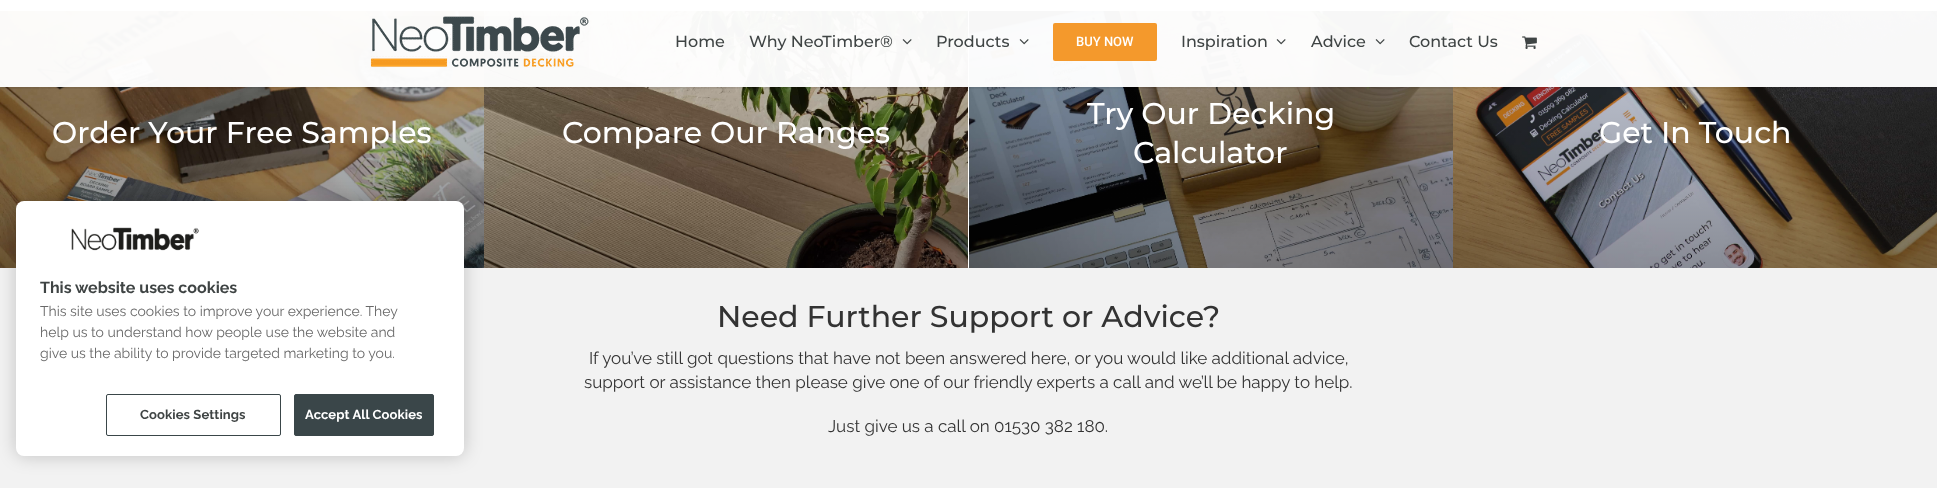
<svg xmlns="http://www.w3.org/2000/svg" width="1937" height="488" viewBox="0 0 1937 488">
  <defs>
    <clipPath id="clip1"><rect x="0" y="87" width="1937" height="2"/></clipPath>
  </defs>
  <rect width="100%" height="100%" fill="rgb(255,255,255)"/>
  <rect x="0" y="267" width="1937" height="221" fill="rgb(242,242,242)"/>
  <image x="0" y="11" width="484" height="257" href="pic7.png"/>
  <image x="484" y="11" width="484" height="257" href="pic8.png"/>
  <image x="969" y="11" width="484" height="257" href="pic9.png"/>
  <image x="1453" y="11" width="484" height="257" href="pic10.png"/>
  <g clip-path="url(#clip1)">
    <rect x="0" y="1" width="1937" height="87" fill="rgba(0,0,0,0.12)" filter="blur(1.5px)"/>
  </g>
  <rect x="0" y="11" width="1937" height="76" fill="rgba(255,255,255,0.97)"/>
  <image x="370" y="16" width="219" height="52" href="pic1.png"/>
  <g font-family="Montserrat" font-size="16" font-weight="500" fill="rgb(63,68,68)">
    <text x="675" y="47">Home</text>
    <text x="749" y="47">Why NeoTimber®</text>
  </g>
  <image x="902" y="39" width="10" height="6" href="pic2.png"/>
  <text x="936" y="47" font-family="Montserrat" font-size="16" font-weight="500" fill="rgb(63,68,68)">Products</text>
  <image x="1019" y="39" width="10" height="6" href="pic3.png"/>
  <rect x="1053" y="23" width="104" height="38" rx="2" fill="rgb(244,153,44)"/>
  <text x="1076" y="46" font-family="Roboto" font-size="13" font-weight="500" fill="rgb(255,255,255)">BUY NOW</text>
  <text x="1181" y="47" font-family="Montserrat" font-size="16" font-weight="500" fill="rgb(63,68,68)">Inspiration</text>
  <image x="1276" y="39" width="10" height="6" href="pic4.png"/>
  <text x="1311" y="47" font-family="Montserrat" font-size="16" font-weight="500" fill="rgb(63,68,68)">Advice</text>
  <image x="1375" y="39" width="10" height="6" href="pic5.png"/>
  <text x="1409" y="47" font-family="Montserrat" font-size="16" font-weight="500" fill="rgb(63,68,68)">Contact Us</text>
  <image x="1522" y="36" width="15" height="13" href="pic6.png"/>
  <g font-family="Montserrat" font-size="30" font-weight="500" fill="rgb(255,255,255)">
    <text x="52" y="143">Order Your Free Samples</text>
    <text x="562" y="143">Compare Our Ranges</text>
    <text x="1087" y="124">Try Our Decking</text>
    <text x="1133" y="163">Calculator</text>
    <text x="1599" y="143">Get In Touch</text>
  </g>
  <text x="717" y="327" font-family="Montserrat" font-size="30" font-weight="500" fill="rgb(51,51,51)">Need Further Support or Advice?</text>
  <g font-family="Raleway" font-size="17" fill="rgb(51,51,51)">
    <text x="589" y="364">If you’ve still got questions that have not been answered here, or you would like additional advice,</text>
    <text x="584" y="388">support or assistance then please give one of our friendly experts a call and we’ll be happy to help.</text>
    <text x="828" y="432">Just give us a call on 01530 382 180.</text>
  </g>
  <rect x="16" y="201" width="448" height="255" rx="8" fill="rgba(0,0,0,0.2)" filter="blur(9px)"/>
  <rect x="16" y="201" width="448" height="255" rx="8" fill="rgb(255,255,255)"/>
  <image x="71" y="227" width="128" height="24" href="pic11.png"/>
  <text x="40" y="293" font-family="Raleway" font-size="16" font-weight="bold" fill="rgb(63,68,68)">This website uses cookies</text>
  <g font-family="Raleway" font-size="14" fill="rgb(105,105,105)">
    <text>
      <tspan x="40" y="316">This site uses cookies to improve your experience. They</tspan>
      <tspan x="40" y="337">help us to understand how people use the website and</tspan>
      <tspan x="40" y="358">give us the ability to provide targeted marketing to you.</tspan>
    </text>
  </g>
  <rect x="106.5" y="394.5" width="174" height="41" rx="1.5" fill="none" stroke="rgb(58,70,73)"/>
  <text x="140" y="419" font-family="Raleway" font-size="13" font-weight="bold" letter-spacing="0.1" fill="rgb(63,68,68)">Cookies Settings</text>
  <rect x="294.5" y="394.5" width="139" height="41" rx="1.5" fill="rgb(58,70,73)" stroke="rgb(58,70,73)"/>
  <text x="305" y="419" font-family="Raleway" font-size="13" font-weight="bold" letter-spacing="0.1" fill="rgb(255,255,255)">Accept All Cookies</text>
</svg>
